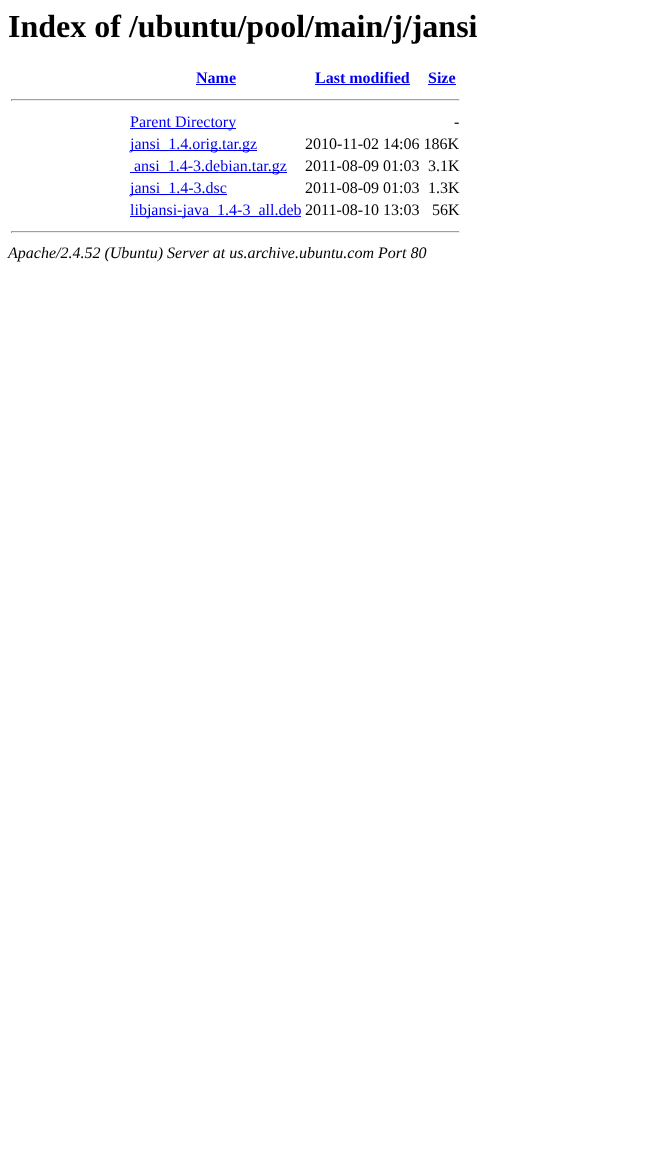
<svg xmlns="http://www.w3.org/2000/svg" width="663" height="1166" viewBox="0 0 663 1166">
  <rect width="100%" height="100%" fill="rgb(255,255,255)"/>
  <text x="8" y="37" font-family="Liberation Serif" font-size="32" font-weight="bold" fill="rgb(0,0,0)">Index of /ubuntu/pool/main/j/jansi</text>
  <text x="196" y="83" font-family="Liberation Serif" font-size="16" font-weight="bold" fill="rgb(0,0,238)">Name</text>
  <rect x="196" y="84" width="40" height="1" fill="rgb(0,0,238)"/>
  <text x="315" y="83" font-family="Liberation Serif" font-size="16" font-weight="bold" fill="rgb(0,0,238)">Last modified</text>
  <rect x="315" y="84" width="95" height="1" fill="rgb(0,0,238)"/>
  <text x="428" y="83" font-family="Liberation Serif" font-size="16" font-weight="bold" fill="rgb(0,0,238)">Size</text>
  <rect x="428" y="84" width="28" height="1" fill="rgb(0,0,238)"/>
  <rect x="11" y="99" width="449" height="1" fill="rgb(159,159,159)"/>
  <rect x="459" y="99" width="1" height="2" fill="rgb(238,238,238)"/>
  <rect x="11" y="100" width="449" height="1" fill="rgb(238,238,238)"/>
  <rect x="11" y="99" width="1" height="2" fill="rgb(159,159,159)"/>
  <rect x="130" y="128" width="106" height="1" fill="rgb(0,0,238)"/>
  <text x="130" y="127" font-family="Liberation Serif" font-size="16" fill="rgb(0,0,238)">Parent Directory</text>
  <text x="454" y="127" font-family="Liberation Serif" font-size="16" fill="rgb(0,0,0)">-</text>
  <rect x="130" y="150" width="127" height="1" fill="rgb(0,0,238)"/>
  <text x="130" y="149" font-family="Liberation Serif" font-size="16" fill="rgb(0,0,238)">jansi_1.4.orig.tar.gz</text>
  <text x="305" y="149" font-family="Liberation Serif" font-size="16" fill="rgb(0,0,0)">2010-11-02 14:06 186K</text>
  <rect x="130" y="172" width="157" height="1" fill="rgb(0,0,238)"/>
  <text x="134" y="171" font-family="Liberation Serif" font-size="16" fill="rgb(0,0,238)">ansi_1.4-3.debian.tar.gz</text>
  <g font-family="Liberation Serif" font-size="16" fill="rgb(0,0,0)">
    <text x="305" y="171">2011-08-09 01:03</text>
    <text x="428" y="171">3.1K</text>
  </g>
  <rect x="130" y="194" width="97" height="1" fill="rgb(0,0,238)"/>
  <text x="130" y="193" font-family="Liberation Serif" font-size="16" fill="rgb(0,0,238)">jansi_1.4-3.dsc</text>
  <g font-family="Liberation Serif" font-size="16" fill="rgb(0,0,0)">
    <text x="305" y="193">2011-08-09 01:03</text>
    <text x="428" y="193">1.3K</text>
  </g>
  <rect x="130" y="216" width="171" height="1" fill="rgb(0,0,238)"/>
  <text x="130" y="215" font-family="Liberation Serif" font-size="16" fill="rgb(0,0,238)">libjansi-java_1.4-3_all.deb</text>
  <g font-family="Liberation Serif" font-size="16" fill="rgb(0,0,0)">
    <text x="305" y="215">2011-08-10 13:03</text>
    <text x="432" y="215">56K</text>
  </g>
  <rect x="11" y="231" width="449" height="1" fill="rgb(159,159,159)"/>
  <rect x="459" y="231" width="1" height="2" fill="rgb(238,238,238)"/>
  <rect x="11" y="232" width="449" height="1" fill="rgb(238,238,238)"/>
  <rect x="11" y="231" width="1" height="2" fill="rgb(159,159,159)"/>
  <text x="8" y="258" font-family="Liberation Serif" font-size="16" font-style="italic" fill="rgb(0,0,0)">Apache/2.4.52 (Ubuntu) Server at us.archive.ubuntu.com Port 80</text>
</svg>
